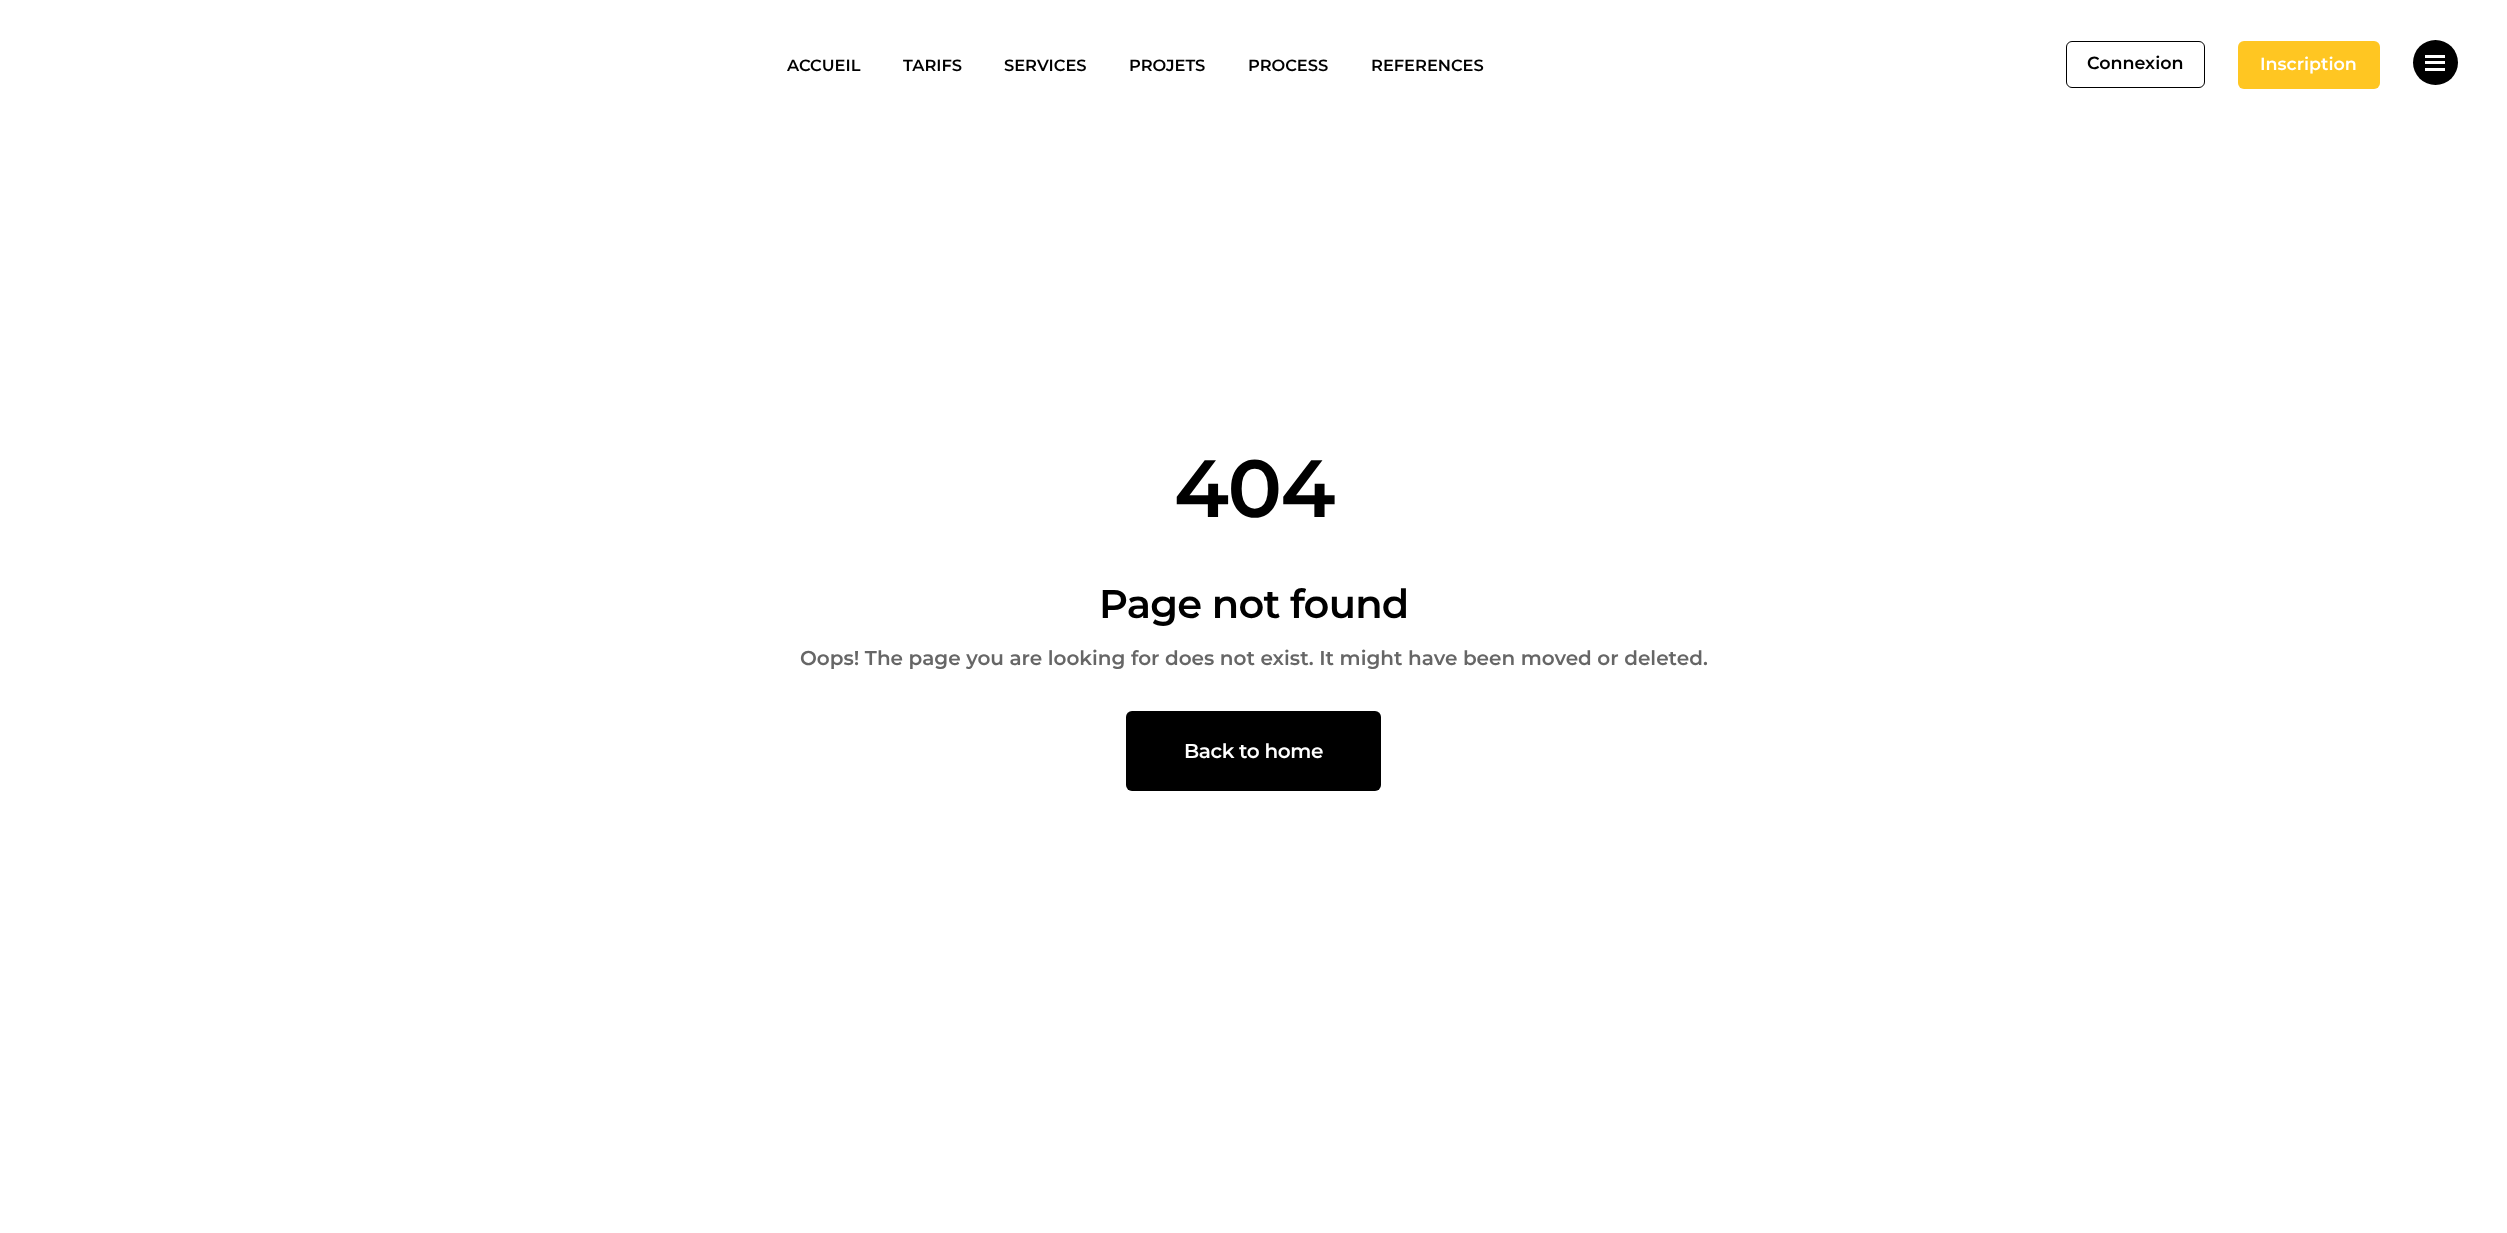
<svg xmlns="http://www.w3.org/2000/svg" width="2507" height="1233" viewBox="0 0 2507 1233">
  <rect width="100%" height="100%" fill="rgb(255,255,255)"/>
  <g font-family="Montserrat" font-size="16.25" font-weight="100" fill="rgb(0,0,0)">
    <text x="787" y="71">ACCUEIL</text>
    <text x="903" y="71">TARIFS</text>
    <text x="1004" y="71">SERVICES</text>
    <text x="1129" y="71">PROJETS</text>
    <text x="1248" y="71">PROCESS</text>
    <text x="1371" y="71">REFERENCES</text>
  </g>
  <rect x="2066.5" y="41.5" width="138" height="46" rx="5.5" fill="none" stroke="rgb(0,0,0)"/>
  <text x="2087" y="69" font-family="Montserrat" font-size="17.5" font-weight="100" fill="rgb(0,0,0)">Connexion</text>
  <rect x="2238" y="41" width="142" height="48" rx="6" fill="rgb(255,198,34)"/>
  <text x="2260" y="70" font-family="Montserrat" font-size="17.5" font-weight="100" fill="rgb(255,255,255)">Inscription</text>
  <circle cx="2435.5" cy="62.5" r="22.5" fill="rgb(0,0,0)"/>
  <rect x="2425" y="55" width="20" height="3" fill="rgb(255,255,255)"/>
  <rect x="2425" y="61" width="20" height="3" fill="rgb(255,255,255)"/>
  <rect x="2425" y="68" width="20" height="3" fill="rgb(255,255,255)"/>
  <text x="1174" y="517" font-family="Montserrat" font-size="81" font-weight="100" letter-spacing="-1.5" fill="rgb(0,0,0)">404</text>
  <text x="1099" y="618" font-family="Montserrat" font-size="40" font-weight="100" letter-spacing="-0.75" fill="rgb(0,0,0)">Page not found</text>
  <text x="800" y="665" font-family="Montserrat" font-size="20" font-weight="100" fill="rgb(102,102,102)">Oops! The page you are looking for does not exist. It might have been moved or deleted.</text>
  <rect x="1126" y="711" width="255" height="80" rx="6" fill="rgb(0,0,0)"/>
  <text x="1184" y="758" font-family="Montserrat" font-size="20" font-weight="100" letter-spacing="-0.4" fill="rgb(255,255,255)">Back to home</text>
</svg>
